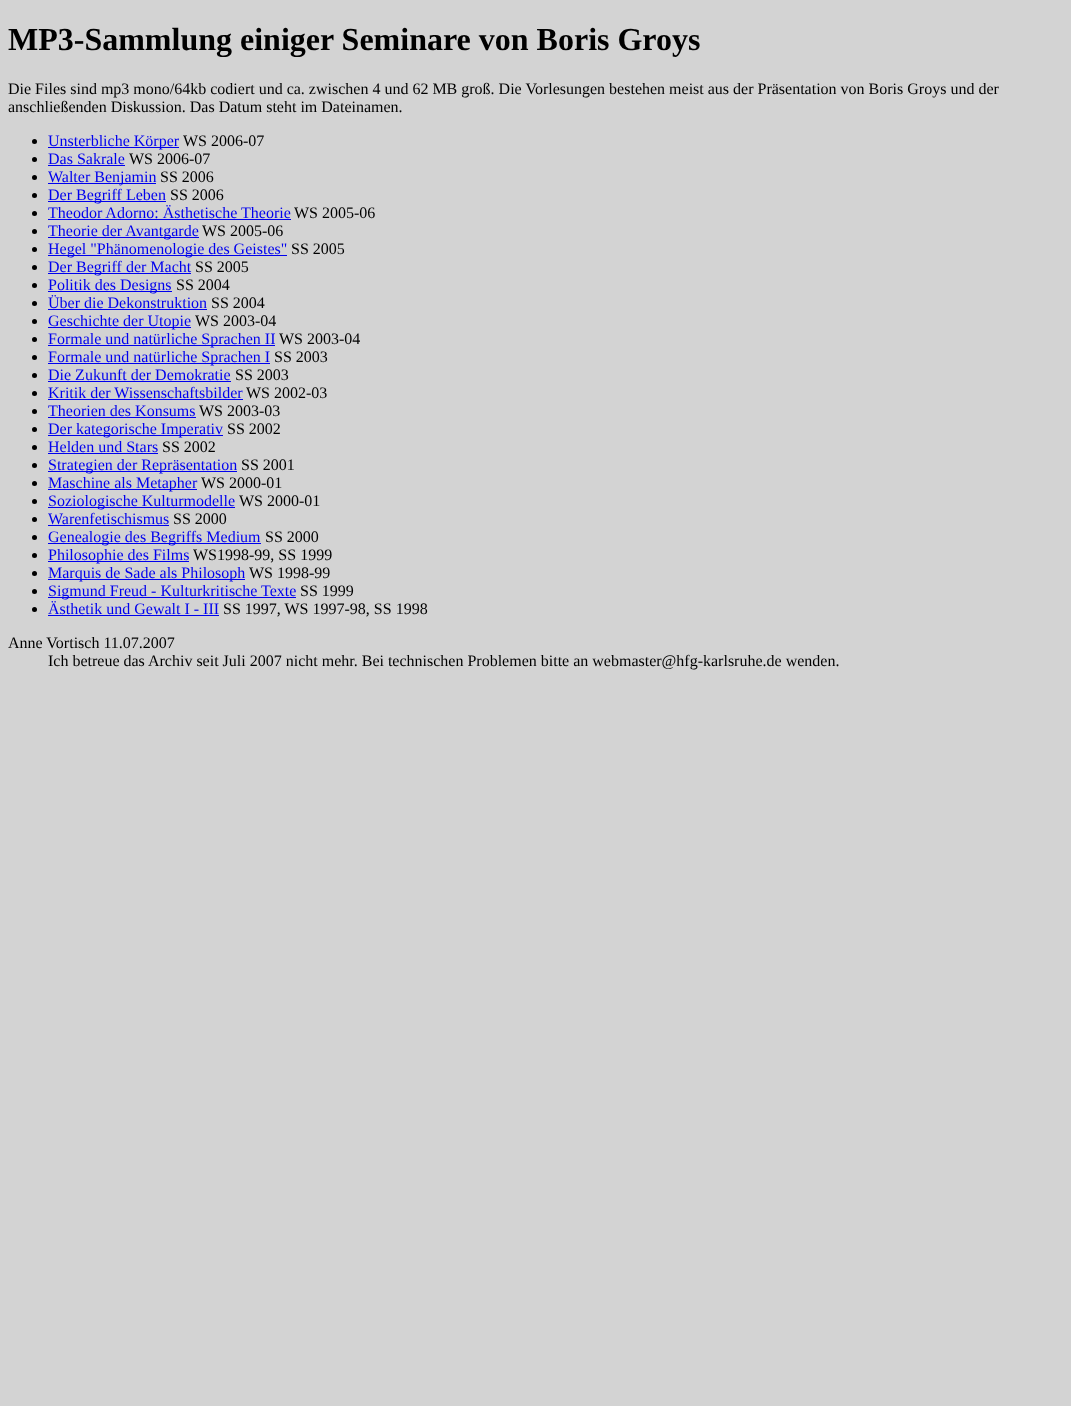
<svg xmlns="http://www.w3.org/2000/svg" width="1071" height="1406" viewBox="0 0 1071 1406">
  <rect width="100%" height="100%" fill="rgb(211,211,211)"/>
  <text x="8" y="50" font-family="Liberation Serif" font-size="32" font-weight="bold" fill="rgb(0,0,0)">MP3-Sammlung einiger Seminare von Boris Groys</text>
  <g font-family="Liberation Serif" font-size="16" fill="rgb(0,0,0)">
    <text>
      <tspan x="8" y="94">Die Files sind mp3 mono/64kb codiert und ca. zwischen 4 und 62 MB groß. Die Vorlesungen bestehen meist aus der Präsentation von Boris Groys und der</tspan>
      <tspan x="8" y="112">anschließenden Diskussion. Das Datum steht im Dateinamen.</tspan>
    </text>
  </g>
  <circle cx="34.5" cy="141.5" r="2.5" fill="rgb(0,0,0)"/>
  <rect x="48" y="147" width="131" height="1" fill="rgb(0,0,238)"/>
  <text x="48" y="146" font-family="Liberation Serif" font-size="16" fill="rgb(0,0,238)">Unsterbliche Körper</text>
  <text x="183" y="146" font-family="Liberation Serif" font-size="16" fill="rgb(0,0,0)">WS 2006-07</text>
  <circle cx="34.5" cy="159.5" r="2.5" fill="rgb(0,0,0)"/>
  <text x="48" y="164" font-family="Liberation Serif" font-size="16" fill="rgb(0,0,238)">Das Sakrale</text>
  <rect x="48" y="165" width="77" height="1" fill="rgb(0,0,238)"/>
  <text x="129" y="164" font-family="Liberation Serif" font-size="16" fill="rgb(0,0,0)">WS 2006-07</text>
  <circle cx="34.5" cy="177.5" r="2.5" fill="rgb(0,0,0)"/>
  <rect x="48" y="183" width="108" height="1" fill="rgb(0,0,238)"/>
  <text x="48" y="182" font-family="Liberation Serif" font-size="16" fill="rgb(0,0,238)">Walter Benjamin</text>
  <text x="160" y="182" font-family="Liberation Serif" font-size="16" fill="rgb(0,0,0)">SS 2006</text>
  <circle cx="34.5" cy="195.5" r="2.5" fill="rgb(0,0,0)"/>
  <rect x="48" y="201" width="118" height="1" fill="rgb(0,0,238)"/>
  <text x="48" y="200" font-family="Liberation Serif" font-size="16" fill="rgb(0,0,238)">Der Begriff Leben</text>
  <text x="170" y="200" font-family="Liberation Serif" font-size="16" fill="rgb(0,0,0)">SS 2006</text>
  <circle cx="34.5" cy="213.5" r="2.5" fill="rgb(0,0,0)"/>
  <text x="48" y="218" font-family="Liberation Serif" font-size="16" fill="rgb(0,0,238)">Theodor Adorno: Ästhetische Theorie</text>
  <rect x="48" y="219" width="243" height="1" fill="rgb(0,0,238)"/>
  <text x="294" y="218" font-family="Liberation Serif" font-size="16" fill="rgb(0,0,0)">WS 2005-06</text>
  <circle cx="34.5" cy="231.5" r="2.5" fill="rgb(0,0,0)"/>
  <rect x="48" y="237" width="151" height="1" fill="rgb(0,0,238)"/>
  <text x="48" y="236" font-family="Liberation Serif" font-size="16" fill="rgb(0,0,238)">Theorie der Avantgarde</text>
  <text x="202" y="236" font-family="Liberation Serif" font-size="16" fill="rgb(0,0,0)">WS 2005-06</text>
  <circle cx="34.5" cy="249.5" r="2.5" fill="rgb(0,0,0)"/>
  <rect x="48" y="255" width="239" height="1" fill="rgb(0,0,238)"/>
  <text x="48" y="254" font-family="Liberation Serif" font-size="16" fill="rgb(0,0,238)">Hegel "Phänomenologie des Geistes"</text>
  <text x="291" y="254" font-family="Liberation Serif" font-size="16" fill="rgb(0,0,0)">SS 2005</text>
  <circle cx="34.5" cy="267.5" r="2.5" fill="rgb(0,0,0)"/>
  <rect x="48" y="273" width="143" height="1" fill="rgb(0,0,238)"/>
  <text x="48" y="272" font-family="Liberation Serif" font-size="16" fill="rgb(0,0,238)">Der Begriff der Macht</text>
  <text x="195" y="272" font-family="Liberation Serif" font-size="16" fill="rgb(0,0,0)">SS 2005</text>
  <circle cx="34.5" cy="285.5" r="2.5" fill="rgb(0,0,0)"/>
  <rect x="48" y="291" width="124" height="1" fill="rgb(0,0,238)"/>
  <text x="48" y="290" font-family="Liberation Serif" font-size="16" fill="rgb(0,0,238)">Politik des Designs</text>
  <text x="176" y="290" font-family="Liberation Serif" font-size="16" fill="rgb(0,0,0)">SS 2004</text>
  <circle cx="34.5" cy="303.5" r="2.5" fill="rgb(0,0,0)"/>
  <text x="48" y="308" font-family="Liberation Serif" font-size="16" fill="rgb(0,0,238)">Über die Dekonstruktion</text>
  <rect x="48" y="309" width="159" height="1" fill="rgb(0,0,238)"/>
  <text x="211" y="308" font-family="Liberation Serif" font-size="16" fill="rgb(0,0,0)">SS 2004</text>
  <circle cx="34.5" cy="321.5" r="2.5" fill="rgb(0,0,0)"/>
  <rect x="48" y="327" width="143" height="1" fill="rgb(0,0,238)"/>
  <text x="48" y="326" font-family="Liberation Serif" font-size="16" fill="rgb(0,0,238)">Geschichte der Utopie</text>
  <text x="195" y="326" font-family="Liberation Serif" font-size="16" fill="rgb(0,0,0)">WS 2003-04</text>
  <circle cx="34.5" cy="339.5" r="2.5" fill="rgb(0,0,0)"/>
  <rect x="48" y="345" width="227" height="1" fill="rgb(0,0,238)"/>
  <text x="48" y="344" font-family="Liberation Serif" font-size="16" fill="rgb(0,0,238)">Formale und natürliche Sprachen II</text>
  <text x="279" y="344" font-family="Liberation Serif" font-size="16" fill="rgb(0,0,0)">WS 2003-04</text>
  <circle cx="34.5" cy="357.5" r="2.5" fill="rgb(0,0,0)"/>
  <rect x="48" y="363" width="222" height="1" fill="rgb(0,0,238)"/>
  <text x="48" y="362" font-family="Liberation Serif" font-size="16" fill="rgb(0,0,238)">Formale und natürliche Sprachen I</text>
  <text x="274" y="362" font-family="Liberation Serif" font-size="16" fill="rgb(0,0,0)">SS 2003</text>
  <circle cx="34.5" cy="375.5" r="2.5" fill="rgb(0,0,0)"/>
  <text x="48" y="380" font-family="Liberation Serif" font-size="16" fill="rgb(0,0,238)">Die Zukunft der Demokratie</text>
  <rect x="48" y="381" width="183" height="1" fill="rgb(0,0,238)"/>
  <text x="235" y="380" font-family="Liberation Serif" font-size="16" fill="rgb(0,0,0)">SS 2003</text>
  <circle cx="34.5" cy="393.5" r="2.5" fill="rgb(0,0,0)"/>
  <text x="48" y="398" font-family="Liberation Serif" font-size="16" fill="rgb(0,0,238)">Kritik der Wissenschaftsbilder</text>
  <rect x="48" y="399" width="195" height="1" fill="rgb(0,0,238)"/>
  <text x="246" y="398" font-family="Liberation Serif" font-size="16" fill="rgb(0,0,0)">WS 2002-03</text>
  <circle cx="34.5" cy="411.5" r="2.5" fill="rgb(0,0,0)"/>
  <text x="48" y="416" font-family="Liberation Serif" font-size="16" fill="rgb(0,0,238)">Theorien des Konsums</text>
  <rect x="48" y="417" width="148" height="1" fill="rgb(0,0,238)"/>
  <text x="199" y="416" font-family="Liberation Serif" font-size="16" fill="rgb(0,0,0)">WS 2003-03</text>
  <circle cx="34.5" cy="429.5" r="2.5" fill="rgb(0,0,0)"/>
  <rect x="48" y="435" width="175" height="1" fill="rgb(0,0,238)"/>
  <text x="48" y="434" font-family="Liberation Serif" font-size="16" fill="rgb(0,0,238)">Der kategorische Imperativ</text>
  <text x="227" y="434" font-family="Liberation Serif" font-size="16" fill="rgb(0,0,0)">SS 2002</text>
  <circle cx="34.5" cy="447.5" r="2.5" fill="rgb(0,0,0)"/>
  <text x="48" y="452" font-family="Liberation Serif" font-size="16" fill="rgb(0,0,238)">Helden und Stars</text>
  <rect x="48" y="453" width="110" height="1" fill="rgb(0,0,238)"/>
  <text x="162" y="452" font-family="Liberation Serif" font-size="16" fill="rgb(0,0,0)">SS 2002</text>
  <circle cx="34.5" cy="465.5" r="2.5" fill="rgb(0,0,0)"/>
  <rect x="48" y="471" width="189" height="1" fill="rgb(0,0,238)"/>
  <text x="48" y="470" font-family="Liberation Serif" font-size="16" fill="rgb(0,0,238)">Strategien der Repräsentation</text>
  <text x="241" y="470" font-family="Liberation Serif" font-size="16" fill="rgb(0,0,0)">SS 2001</text>
  <circle cx="34.5" cy="483.5" r="2.5" fill="rgb(0,0,0)"/>
  <rect x="48" y="489" width="149" height="1" fill="rgb(0,0,238)"/>
  <text x="48" y="488" font-family="Liberation Serif" font-size="16" fill="rgb(0,0,238)">Maschine als Metapher</text>
  <text x="201" y="488" font-family="Liberation Serif" font-size="16" fill="rgb(0,0,0)">WS 2000-01</text>
  <circle cx="34.5" cy="501.5" r="2.5" fill="rgb(0,0,0)"/>
  <rect x="48" y="507" width="187" height="1" fill="rgb(0,0,238)"/>
  <text x="48" y="506" font-family="Liberation Serif" font-size="16" fill="rgb(0,0,238)">Soziologische Kulturmodelle</text>
  <text x="239" y="506" font-family="Liberation Serif" font-size="16" fill="rgb(0,0,0)">WS 2000-01</text>
  <circle cx="34.5" cy="519.5" r="2.5" fill="rgb(0,0,0)"/>
  <text x="48" y="524" font-family="Liberation Serif" font-size="16" fill="rgb(0,0,238)">Warenfetischismus</text>
  <rect x="48" y="525" width="121" height="1" fill="rgb(0,0,238)"/>
  <text x="173" y="524" font-family="Liberation Serif" font-size="16" fill="rgb(0,0,0)">SS 2000</text>
  <circle cx="34.5" cy="537.5" r="2.5" fill="rgb(0,0,0)"/>
  <rect x="48" y="543" width="213" height="1" fill="rgb(0,0,238)"/>
  <text x="48" y="542" font-family="Liberation Serif" font-size="16" fill="rgb(0,0,238)">Genealogie des Begriffs Medium</text>
  <text x="265" y="542" font-family="Liberation Serif" font-size="16" fill="rgb(0,0,0)">SS 2000</text>
  <circle cx="34.5" cy="555.5" r="2.5" fill="rgb(0,0,0)"/>
  <rect x="48" y="561" width="141" height="1" fill="rgb(0,0,238)"/>
  <text x="48" y="560" font-family="Liberation Serif" font-size="16" fill="rgb(0,0,238)">Philosophie des Films</text>
  <text x="193" y="560" font-family="Liberation Serif" font-size="16" fill="rgb(0,0,0)">WS1998-99, SS 1999</text>
  <circle cx="34.5" cy="573.5" r="2.5" fill="rgb(0,0,0)"/>
  <rect x="48" y="579" width="197" height="1" fill="rgb(0,0,238)"/>
  <text x="48" y="578" font-family="Liberation Serif" font-size="16" fill="rgb(0,0,238)">Marquis de Sade als Philosoph</text>
  <text x="249" y="578" font-family="Liberation Serif" font-size="16" fill="rgb(0,0,0)">WS 1998-99</text>
  <circle cx="34.5" cy="591.5" r="2.5" fill="rgb(0,0,0)"/>
  <rect x="48" y="597" width="248" height="1" fill="rgb(0,0,238)"/>
  <text x="48" y="596" font-family="Liberation Serif" font-size="16" fill="rgb(0,0,238)">Sigmund Freud - Kulturkritische Texte</text>
  <text x="300" y="596" font-family="Liberation Serif" font-size="16" fill="rgb(0,0,0)">SS 1999</text>
  <circle cx="34.5" cy="609.5" r="2.5" fill="rgb(0,0,0)"/>
  <text x="48" y="614" font-family="Liberation Serif" font-size="16" fill="rgb(0,0,238)">Ästhetik und Gewalt I - III</text>
  <rect x="48" y="615" width="171" height="1" fill="rgb(0,0,238)"/>
  <g font-family="Liberation Serif" font-size="16" fill="rgb(0,0,0)">
    <text x="223" y="614">SS 1997, WS 1997-98, SS 1998</text>
    <text x="8" y="648">Anne Vortisch 11.07.2007</text>
    <text x="48" y="666">Ich betreue das Archiv seit Juli 2007 nicht mehr. Bei technischen Problemen bitte an webmaster@hfg-karlsruhe.de wenden.</text>
  </g>
</svg>
